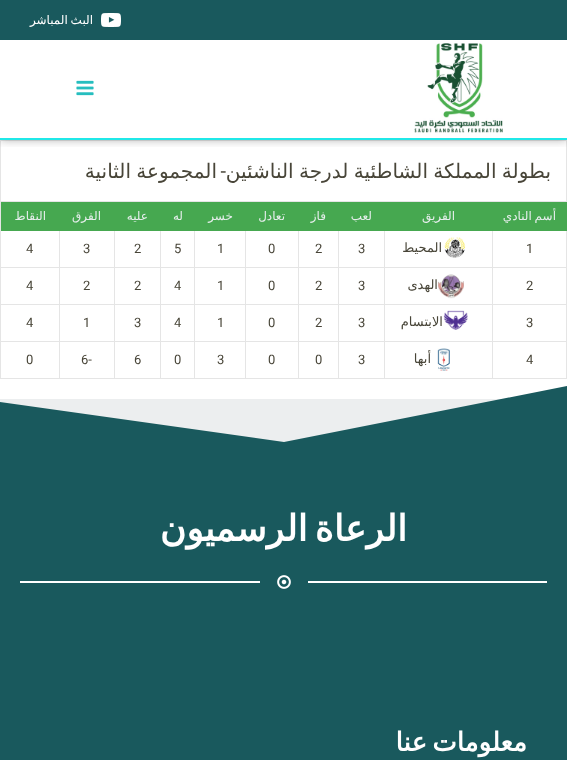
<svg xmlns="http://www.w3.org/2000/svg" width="567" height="760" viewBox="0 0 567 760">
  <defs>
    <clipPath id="clip1"><rect x="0" y="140" width="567" height="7"/></clipPath>
  </defs>
  <rect width="100%" height="100%" fill="rgb(255,255,255)"/>
  <rect x="0" y="140" width="567" height="1" fill="rgb(229,229,229)"/>
  <rect x="566" y="140" width="1" height="61" fill="rgb(229,229,229)"/>
  <rect x="0" y="140" width="1" height="61" fill="rgb(229,229,229)"/>
  <g clip-path="url(#clip1)">
    <rect x="0" y="0" width="567" height="140" fill="rgba(0,0,0,0.3)" filter="blur(5px)"/>
  </g>
  <rect x="0" y="0" width="567" height="40" fill="rgb(25,89,93)"/>
  <image x="101" y="13" width="20" height="14" href="pic1.png"/>
  <text x="93" y="24" word-spacing="-1" font-family="DejaVu Sans" font-size="12" direction="rtl" fill="rgb(255,255,255)">البث المباشر</text>
  <rect x="0" y="138" width="567" height="2" fill="rgb(32,232,232)"/>
  <image x="414" y="43" width="89" height="90" href="pic2.png"/>
  <image x="76" y="80" width="18" height="16" href="pic3.png"/>
  <text x="551" y="178" word-spacing="-1" font-family="DejaVu Sans" font-size="20" direction="rtl" fill="rgb(72,69,56)">بطولة المملكة الشاطئية لدرجة الناشئين</text>
  <text x="226" y="178" font-family="Roboto" font-size="20" direction="rtl" fill="rgb(72,69,56)">-</text>
  <text x="217" y="178" word-spacing="-1" font-family="DejaVu Sans" font-size="20" direction="rtl" fill="rgb(72,69,56)">المجموعة الثانية</text>
  <rect x="0" y="201" width="567" height="1" fill="rgb(229,229,229)"/>
  <rect x="566" y="201" width="1" height="178" fill="rgb(229,229,229)"/>
  <rect x="0" y="378" width="567" height="1" fill="rgb(229,229,229)"/>
  <rect x="0" y="201" width="1" height="178" fill="rgb(229,229,229)"/>
  <rect x="0" y="267" width="60" height="1" fill="rgb(229,229,229)"/>
  <rect x="0" y="304" width="60" height="1" fill="rgb(229,229,229)"/>
  <rect x="0" y="341" width="60" height="1" fill="rgb(229,229,229)"/>
  <rect x="59" y="341" width="1" height="38" fill="rgb(229,229,229)"/>
  <rect x="59" y="341" width="56" height="1" fill="rgb(229,229,229)"/>
  <rect x="59" y="304" width="1" height="38" fill="rgb(229,229,229)"/>
  <rect x="59" y="304" width="56" height="1" fill="rgb(229,229,229)"/>
  <rect x="59" y="267" width="1" height="38" fill="rgb(229,229,229)"/>
  <rect x="59" y="267" width="56" height="1" fill="rgb(229,229,229)"/>
  <rect x="114" y="341" width="1" height="38" fill="rgb(229,229,229)"/>
  <rect x="114" y="341" width="47" height="1" fill="rgb(229,229,229)"/>
  <rect x="114" y="304" width="1" height="38" fill="rgb(229,229,229)"/>
  <rect x="114" y="304" width="47" height="1" fill="rgb(229,229,229)"/>
  <rect x="114" y="267" width="1" height="38" fill="rgb(229,229,229)"/>
  <rect x="114" y="267" width="47" height="1" fill="rgb(229,229,229)"/>
  <rect x="160" y="341" width="1" height="38" fill="rgb(229,229,229)"/>
  <rect x="160" y="341" width="35" height="1" fill="rgb(229,229,229)"/>
  <rect x="160" y="304" width="1" height="38" fill="rgb(229,229,229)"/>
  <rect x="160" y="304" width="35" height="1" fill="rgb(229,229,229)"/>
  <rect x="160" y="267" width="1" height="38" fill="rgb(229,229,229)"/>
  <rect x="160" y="267" width="35" height="1" fill="rgb(229,229,229)"/>
  <rect x="194" y="341" width="1" height="38" fill="rgb(229,229,229)"/>
  <rect x="194" y="341" width="52" height="1" fill="rgb(229,229,229)"/>
  <rect x="194" y="304" width="1" height="38" fill="rgb(229,229,229)"/>
  <rect x="194" y="304" width="52" height="1" fill="rgb(229,229,229)"/>
  <rect x="194" y="267" width="1" height="38" fill="rgb(229,229,229)"/>
  <rect x="194" y="267" width="52" height="1" fill="rgb(229,229,229)"/>
  <rect x="245" y="341" width="1" height="38" fill="rgb(229,229,229)"/>
  <rect x="245" y="341" width="54" height="1" fill="rgb(229,229,229)"/>
  <rect x="245" y="304" width="1" height="38" fill="rgb(229,229,229)"/>
  <rect x="245" y="304" width="54" height="1" fill="rgb(229,229,229)"/>
  <rect x="245" y="267" width="1" height="38" fill="rgb(229,229,229)"/>
  <rect x="245" y="267" width="54" height="1" fill="rgb(229,229,229)"/>
  <rect x="298" y="341" width="1" height="38" fill="rgb(229,229,229)"/>
  <rect x="298" y="341" width="41" height="1" fill="rgb(229,229,229)"/>
  <rect x="298" y="304" width="1" height="38" fill="rgb(229,229,229)"/>
  <rect x="298" y="304" width="41" height="1" fill="rgb(229,229,229)"/>
  <rect x="298" y="267" width="1" height="38" fill="rgb(229,229,229)"/>
  <rect x="298" y="267" width="41" height="1" fill="rgb(229,229,229)"/>
  <rect x="338" y="341" width="1" height="38" fill="rgb(229,229,229)"/>
  <rect x="338" y="341" width="47" height="1" fill="rgb(229,229,229)"/>
  <rect x="338" y="304" width="1" height="38" fill="rgb(229,229,229)"/>
  <rect x="338" y="304" width="47" height="1" fill="rgb(229,229,229)"/>
  <rect x="338" y="267" width="1" height="38" fill="rgb(229,229,229)"/>
  <rect x="338" y="267" width="47" height="1" fill="rgb(229,229,229)"/>
  <rect x="384" y="341" width="1" height="38" fill="rgb(229,229,229)"/>
  <rect x="384" y="341" width="109" height="1" fill="rgb(229,229,229)"/>
  <rect x="384" y="304" width="1" height="38" fill="rgb(229,229,229)"/>
  <rect x="384" y="304" width="109" height="1" fill="rgb(229,229,229)"/>
  <rect x="384" y="267" width="1" height="38" fill="rgb(229,229,229)"/>
  <rect x="384" y="267" width="109" height="1" fill="rgb(229,229,229)"/>
  <rect x="492" y="341" width="1" height="38" fill="rgb(229,229,229)"/>
  <rect x="492" y="341" width="75" height="1" fill="rgb(229,229,229)"/>
  <rect x="492" y="304" width="1" height="38" fill="rgb(229,229,229)"/>
  <rect x="492" y="304" width="75" height="1" fill="rgb(229,229,229)"/>
  <rect x="492" y="267" width="1" height="38" fill="rgb(229,229,229)"/>
  <rect x="492" y="267" width="75" height="1" fill="rgb(229,229,229)"/>
  <rect x="492" y="230" width="1" height="38" fill="rgb(229,229,229)"/>
  <rect x="384" y="230" width="1" height="38" fill="rgb(229,229,229)"/>
  <rect x="338" y="230" width="1" height="38" fill="rgb(229,229,229)"/>
  <rect x="298" y="230" width="1" height="38" fill="rgb(229,229,229)"/>
  <rect x="245" y="230" width="1" height="38" fill="rgb(229,229,229)"/>
  <rect x="194" y="230" width="1" height="38" fill="rgb(229,229,229)"/>
  <rect x="160" y="230" width="1" height="38" fill="rgb(229,229,229)"/>
  <rect x="114" y="230" width="1" height="38" fill="rgb(229,229,229)"/>
  <rect x="59" y="230" width="1" height="38" fill="rgb(229,229,229)"/>
  <rect x="1" y="202" width="566" height="29" fill="rgb(70,168,80)"/>
  <g font-family="DejaVu Sans" font-size="12" direction="rtl" fill="rgb(230,238,236)">
    <text x="556" y="220" word-spacing="-1">أسم النادي</text>
    <text x="455" y="220">الفريق</text>
    <text x="372" y="220">لعب</text>
    <text x="326" y="220">فاز</text>
    <text x="285" y="220">تعادل</text>
    <text x="233" y="220">خسر</text>
    <text x="183" y="220">له</text>
    <text x="148" y="220">عليه</text>
    <text x="101" y="220">الفرق</text>
    <text x="46" y="220">النقاط</text>
  </g>
  <text x="526" y="253" font-family="Roboto" font-size="13" fill="rgb(72,69,56)">1</text>
  <image x="444" y="237" width="22" height="21" href="pic4.png"/>
  <text x="442" y="252" font-family="DejaVu Sans" font-size="13" direction="rtl" fill="rgb(72,69,56)">المحيط</text>
  <g font-family="Roboto" font-size="13" fill="rgb(72,69,56)">
    <text x="358" y="253">3</text>
    <text x="315" y="253">2</text>
    <text x="268" y="253">0</text>
    <text x="217" y="253">1</text>
    <text x="174" y="253">5</text>
    <text x="134" y="253">2</text>
    <text x="83" y="253">3</text>
    <text x="26" y="253">4</text>
    <text x="526" y="290">2</text>
  </g>
  <image x="438" y="274" width="26" height="25" href="pic5.png"/>
  <text x="438" y="289" font-family="DejaVu Sans" font-size="13" direction="rtl" fill="rgb(72,69,56)">الهدى</text>
  <g font-family="Roboto" font-size="13" fill="rgb(72,69,56)">
    <text x="358" y="290">3</text>
    <text x="315" y="290">2</text>
    <text x="268" y="290">0</text>
    <text x="217" y="290">1</text>
    <text x="174" y="290">4</text>
    <text x="134" y="290">2</text>
    <text x="83" y="290">2</text>
    <text x="26" y="290">4</text>
    <text x="526" y="327">3</text>
  </g>
  <image x="443" y="310" width="25" height="20" href="pic6.png"/>
  <text x="443" y="326" font-family="DejaVu Sans" font-size="13" direction="rtl" fill="rgb(72,69,56)">الابتسام</text>
  <g font-family="Roboto" font-size="13" fill="rgb(72,69,56)">
    <text x="358" y="327">3</text>
    <text x="315" y="327">2</text>
    <text x="268" y="327">0</text>
    <text x="217" y="327">1</text>
    <text x="174" y="327">4</text>
    <text x="134" y="327">3</text>
    <text x="83" y="327">1</text>
    <text x="26" y="327">4</text>
    <text x="526" y="364">4</text>
  </g>
  <image x="437" y="348" width="13" height="23" href="pic7.png"/>
  <text x="431" y="363" font-family="DejaVu Sans" font-size="13" direction="rtl" fill="rgb(72,69,56)">أبها</text>
  <g font-family="Roboto" font-size="13" fill="rgb(72,69,56)">
    <text x="358" y="364">3</text>
    <text x="315" y="364">0</text>
    <text x="268" y="364">0</text>
    <text x="217" y="364">3</text>
    <text x="174" y="364">0</text>
    <text x="134" y="364">6</text>
    <text x="81" y="364">6-</text>
    <text x="26" y="364">0</text>
  </g>
  <rect x="0" y="399" width="502" height="43" fill="rgb(236,238,239)"/>
  <path d="M0 402L284 442L567 386V450H0Z" fill="rgb(25,89,93)"/>
  <rect x="0" y="450" width="567" height="310" fill="rgb(25,89,93)"/>
  <text x="407" y="541" word-spacing="-4" font-family="DejaVu Sans" font-size="36" font-weight="bold" direction="rtl" fill="rgb(255,255,255)">الرعاة الرسميون</text>
  <rect x="308" y="581" width="239" height="2" fill="rgb(255,255,255)"/>
  <image x="277" y="575" width="14" height="14" href="pic8.png"/>
  <rect x="20" y="581" width="240" height="2" fill="rgb(255,255,255)"/>
  <text x="527" y="751" word-spacing="-3" font-family="DejaVu Sans" font-size="26" font-weight="bold" direction="rtl" fill="rgb(255,255,255)">معلومات عنا</text>
</svg>
